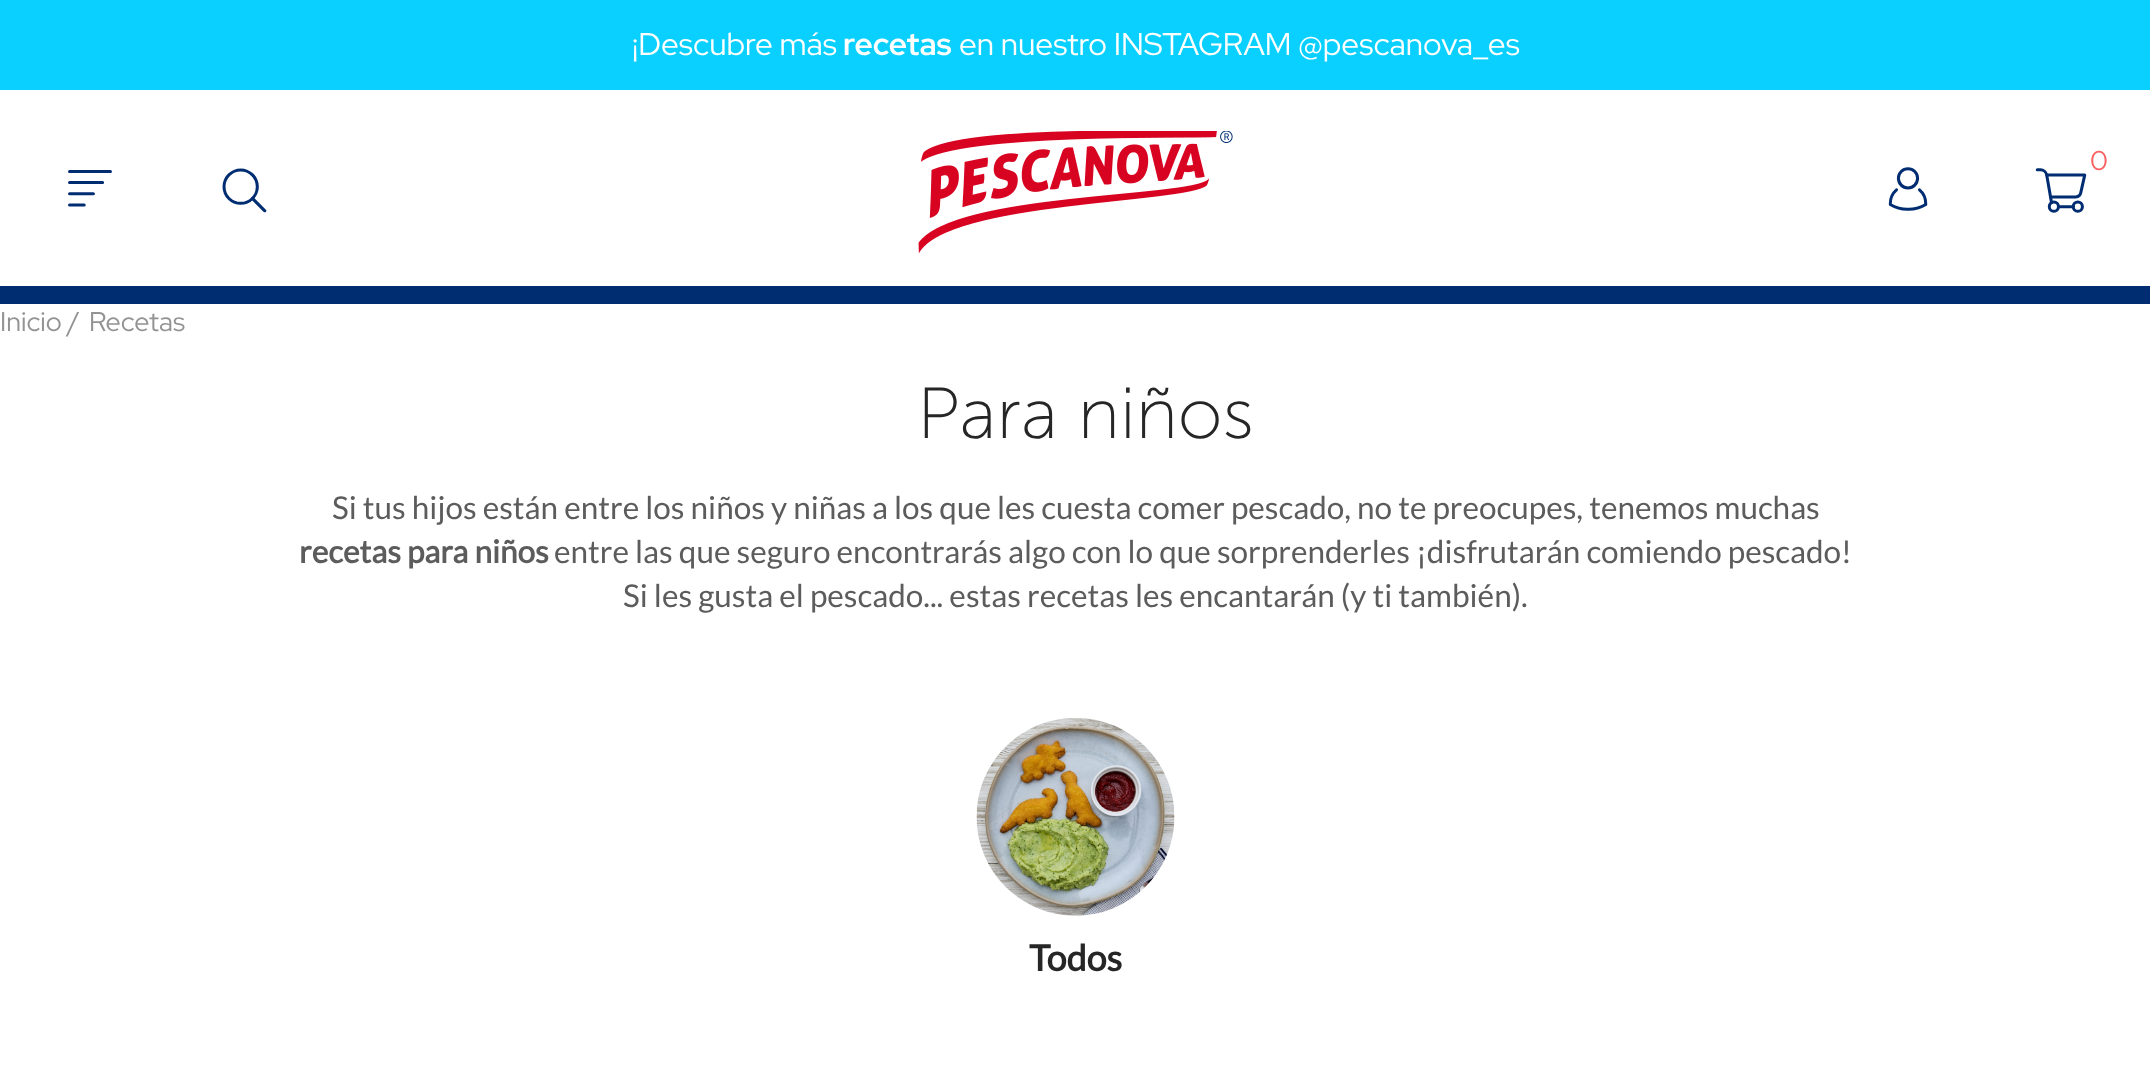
<svg xmlns="http://www.w3.org/2000/svg" width="2150" height="1079" viewBox="0 0 2150 1079">
  <rect width="100%" height="100%" fill="rgb(255,255,255)"/>
  <rect x="0" y="0" width="2150" height="90" fill="rgb(9,208,255)"/>
  <text x="632" y="55" font-family="Red Hat Display" font-size="31.5" fill="rgb(255,255,255)">¡Descubre más</text>
  <text x="843" y="55" font-family="Red Hat Display" font-size="31.5" font-weight="bold" fill="rgb(255,255,255)">recetas</text>
  <text x="959" y="55" font-family="Red Hat Display" font-size="31.5" fill="rgb(255,255,255)">en nuestro INSTAGRAM @pescanova_es</text>
  <rect x="0" y="286" width="2150" height="18" fill="rgb(0,45,114)"/>
  <image x="918" y="131" width="315" height="123" href="pic1.png"/>
  <text x="2090" y="170" font-family="Red Hat Display" font-size="27" fill="rgb(249,98,98)">0</text>
  <image x="2035" y="168" width="52" height="45" href="pic2.png"/>
  <image x="68" y="170" width="44" height="37" href="pic3.png"/>
  <image x="222" y="168" width="45" height="45" href="pic4.png"/>
  <image x="1888" y="167" width="40" height="44" href="pic5.png"/>
  <g font-family="Red Hat Display" font-size="27" fill="rgb(147,147,147)">
    <text x="0" y="331">Inicio /</text>
    <text x="89" y="331">Recetas</text>
  </g>
  <text x="917" y="438" font-family="Museo Sans" font-size="72" font-weight="200" fill="rgb(38,38,38)">Para niños</text>
  <text x="332" y="519" font-family="Lato" font-size="31.5" fill="rgb(92,92,92)">Si tus hijos están entre los niños y niñas a los que les cuesta comer pescado, no te preocupes, tenemos muchas</text>
  <text x="299" y="563" font-family="Lato" font-size="31.5" font-weight="bold" fill="rgb(92,92,92)">recetas para niños</text>
  <g font-family="Lato" font-size="31.5" fill="rgb(92,92,92)">
    <text x="554" y="563">entre las que seguro encontrarás algo con lo que sorprenderles ¡disfrutarán comiendo pescado!</text>
    <text x="623" y="607">Si les gusta el pescado... estas recetas les encantarán (y ti también).</text>
  </g>
  <image x="976" y="718" width="199" height="198" href="pic6.png"/>
  <text x="1029" y="971" font-family="Lato" font-size="36" font-weight="bold" fill="rgb(38,38,38)">Todos</text>
</svg>
